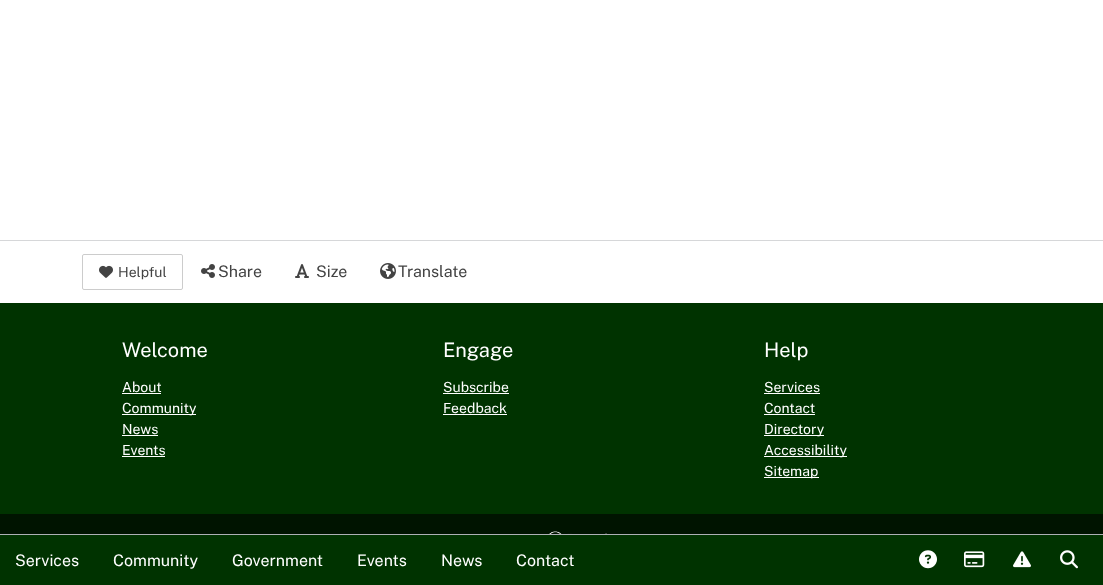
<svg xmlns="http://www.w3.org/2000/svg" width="1103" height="585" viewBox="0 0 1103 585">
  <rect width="100%" height="100%" fill="rgb(255,255,255)"/>
  <rect x="0" y="240" width="1103" height="1" fill="rgb(214,215,217)"/>
  <rect x="82.5" y="254.5" width="100" height="35" rx="1.5" fill="none" stroke="rgb(204,204,204)"/>
  <image x="99" y="265" width="14" height="13" href="pic1.png"/>
  <text x="118" y="277" font-family="Public Sans" font-size="14" fill="rgb(67,67,67)">Helpful</text>
  <image x="201" y="264" width="14" height="14" href="pic2.png"/>
  <text x="218" y="277" font-family="Public Sans" font-size="16" fill="rgb(67,67,67)">Share</text>
  <image x="295" y="264" width="14" height="14" href="pic3.png"/>
  <text x="316" y="277" font-family="Public Sans" font-size="16" fill="rgb(67,67,67)">Size</text>
  <image x="380" y="263" width="16" height="16" href="pic4.png"/>
  <text x="398" y="277" font-family="Public Sans" font-size="16" fill="rgb(67,67,67)">Translate</text>
  <rect x="0" y="303" width="1103" height="211" fill="rgb(0,51,0)"/>
  <text x="122" y="357" font-family="Public Sans" font-size="20" fill="rgb(255,255,255)">Welcome</text>
  <text x="122" y="392" font-family="Public Sans" font-size="14" fill="rgb(255,255,255)">About</text>
  <rect x="122" y="393" width="39" height="1" fill="rgb(255,255,255)"/>
  <rect x="122" y="414" width="74" height="1" fill="rgb(255,255,255)"/>
  <g font-family="Public Sans" font-size="14" fill="rgb(255,255,255)">
    <text>
      <tspan x="122" y="413">Community</tspan>
      <tspan x="122" y="434">News</tspan>
    </text>
  </g>
  <rect x="122" y="435" width="36" height="1" fill="rgb(255,255,255)"/>
  <text x="122" y="455" font-family="Public Sans" font-size="14" fill="rgb(255,255,255)">Events</text>
  <rect x="122" y="456" width="43" height="1" fill="rgb(255,255,255)"/>
  <text x="443" y="357" font-family="Public Sans" font-size="20" fill="rgb(255,255,255)">Engage</text>
  <text x="443" y="392" font-family="Public Sans" font-size="14" fill="rgb(255,255,255)">Subscribe</text>
  <rect x="443" y="393" width="66" height="1" fill="rgb(255,255,255)"/>
  <text x="443" y="413" font-family="Public Sans" font-size="14" fill="rgb(255,255,255)">Feedback</text>
  <rect x="443" y="414" width="64" height="1" fill="rgb(255,255,255)"/>
  <text x="764" y="357" font-family="Public Sans" font-size="20" fill="rgb(255,255,255)">Help</text>
  <text x="764" y="392" font-family="Public Sans" font-size="14" fill="rgb(255,255,255)">Services</text>
  <rect x="764" y="393" width="56" height="1" fill="rgb(255,255,255)"/>
  <text x="764" y="413" font-family="Public Sans" font-size="14" fill="rgb(255,255,255)">Contact</text>
  <rect x="764" y="414" width="51" height="1" fill="rgb(255,255,255)"/>
  <rect x="764" y="435" width="60" height="1" fill="rgb(255,255,255)"/>
  <text x="764" y="434" font-family="Public Sans" font-size="14" fill="rgb(255,255,255)">Directory</text>
  <rect x="764" y="456" width="83" height="1" fill="rgb(255,255,255)"/>
  <text x="764" y="455" font-family="Public Sans" font-size="14" fill="rgb(255,255,255)">Accessibility</text>
  <rect x="764" y="477" width="55" height="1" fill="rgb(255,255,255)"/>
  <text x="764" y="476" font-family="Public Sans" font-size="14" fill="rgb(255,255,255)">Sitemap</text>
  <rect x="0" y="514" width="1103" height="20" fill="rgb(0,20,0)"/>
  <image x="549" y="531" width="58" height="3" href="pic5.png"/>
  <rect x="0" y="535" width="1103" height="50" fill="rgb(0,51,0)"/>
  <rect x="0" y="534" width="1103" height="1" fill="rgb(174,176,181)"/>
  <g font-family="Public Sans" font-size="16" fill="rgb(255,255,255)">
    <text x="15" y="566">Services</text>
    <text x="113" y="566">Community</text>
    <text x="232" y="566">Government</text>
    <text x="357" y="566">Events</text>
    <text x="441" y="566">News</text>
    <text x="516" y="566">Contact</text>
  </g>
  <image x="919" y="550" width="18" height="19" href="pic6.png"/>
  <image x="964" y="551" width="21" height="17" href="pic7.png"/>
  <image x="1013" y="551" width="18" height="17" href="pic8.png"/>
  <image x="1060" y="550" width="18" height="19" href="pic9.png"/>
</svg>
